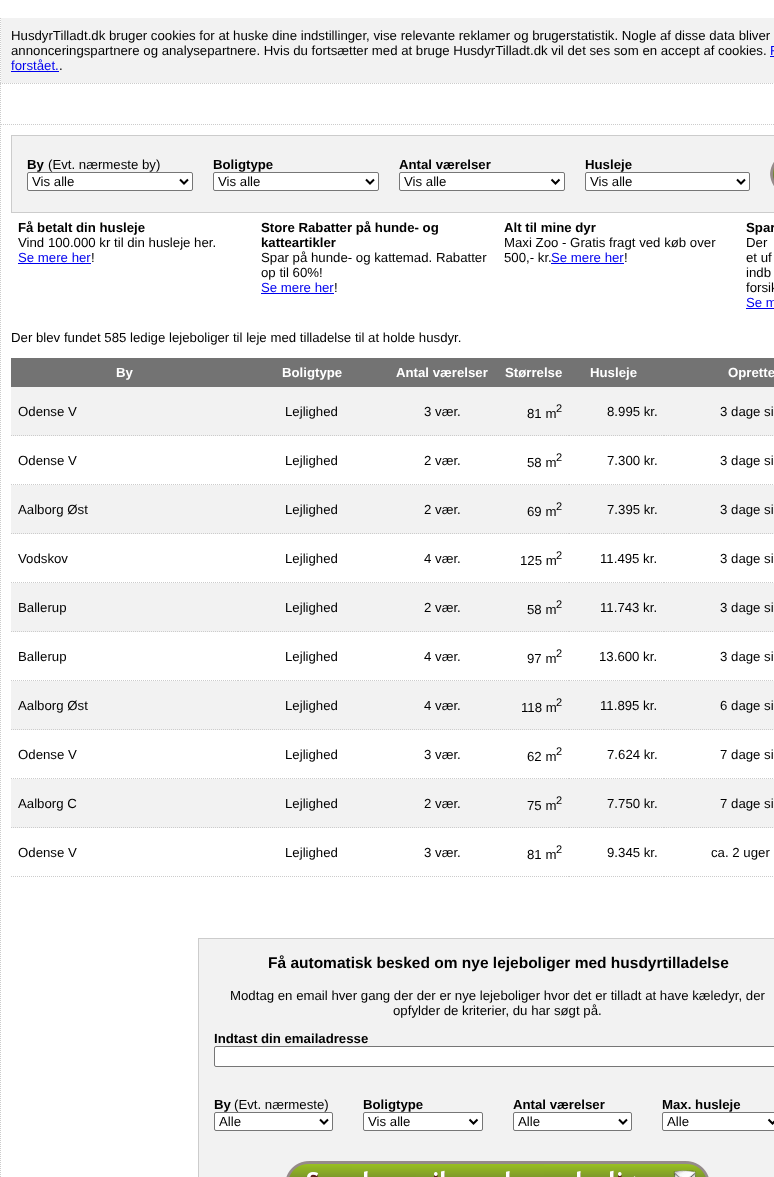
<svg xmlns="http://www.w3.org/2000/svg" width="774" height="1177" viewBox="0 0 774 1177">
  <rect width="100%" height="100%" fill="rgb(255,255,255)"/>
  <path d="M0 83.5H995" fill="none" stroke="rgb(204,204,204)" stroke-dasharray="1 1"/>
  <path d="M.5 18V84" fill="none" stroke="rgb(204,204,204)" stroke-dasharray="1 1"/>
  <rect x="1" y="18" width="773" height="65" fill="rgb(242,242,242)"/>
  <g font-family="Liberation Sans" font-size="13.23" fill="rgb(0,0,0)">
    <text>
      <tspan x="11" y="40">HusdyrTilladt.dk bruger cookies for at huske dine indstillinger, vise relevante reklamer og brugerstatistik. Nogle af disse data bliver</tspan>
      <tspan x="11" y="55">annonceringspartnere og analysepartnere. Hvis du fortsætter med at bruge HusdyrTilladt.dk vil det ses som en accept af cookies.</tspan>
    </text>
  </g>
  <text x="770" y="55" font-family="Liberation Sans" font-size="13.23" fill="rgb(0,0,238)">F</text>
  <rect x="770" y="56" width="4" height="1" fill="rgb(0,0,238)"/>
  <text x="11" y="70" font-family="Liberation Sans" font-size="13.23" fill="rgb(0,0,238)">forstået.</text>
  <text x="59" y="70" font-family="Liberation Sans" font-size="13.23" fill="rgb(0,0,0)">.</text>
  <rect x="11" y="71" width="48" height="1" fill="rgb(0,0,238)"/>
  <path d="M.5 84V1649" fill="none" stroke="rgb(204,204,204)" stroke-dasharray="1 1"/>
  <path d="M1 124.5H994" fill="none" stroke="rgb(204,204,204)" stroke-dasharray="1 1"/>
  <rect x="11.5" y="135.5" width="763" height="77" fill="rgb(242,242,242)" stroke="rgb(204,204,204)"/>
  <text x="27" y="169" font-family="Liberation Sans" font-size="13.23" font-weight="bold" fill="rgb(0,0,0)">By</text>
  <text x="48" y="169" font-family="Liberation Sans" font-size="13.23" fill="rgb(0,0,0)">(Evt. nærmeste by)</text>
  <rect x="27.5" y="172.5" width="165" height="18" rx="1.5" fill="rgb(255,255,255)" stroke="rgb(118,118,118)"/>
  <path d="M180 179.5L184 183.5L188 179.5" fill="none" stroke="rgb(0,0,0)" stroke-width="2"/>
  <text x="32" y="186" font-family="Liberation Sans" font-size="13.23" fill="rgb(0,0,0)">Vis alle</text>
  <text x="213" y="169" font-family="Liberation Sans" font-size="13.23" font-weight="bold" fill="rgb(0,0,0)">Boligtype</text>
  <rect x="213.5" y="172.5" width="165" height="18" rx="1.5" fill="rgb(255,255,255)" stroke="rgb(118,118,118)"/>
  <path d="M366 179.5L370 183.5L374 179.5" fill="none" stroke="rgb(0,0,0)" stroke-width="2"/>
  <text x="218" y="186" font-family="Liberation Sans" font-size="13.23" fill="rgb(0,0,0)">Vis alle</text>
  <text x="399" y="169" font-family="Liberation Sans" font-size="13.23" font-weight="bold" fill="rgb(0,0,0)">Antal værelser</text>
  <rect x="399.5" y="172.5" width="165" height="18" rx="1.5" fill="rgb(255,255,255)" stroke="rgb(118,118,118)"/>
  <path d="M551.5 179.5L555.5 183.5L559.5 179.5" fill="none" stroke="rgb(0,0,0)" stroke-width="2"/>
  <text x="404" y="186" font-family="Liberation Sans" font-size="13.23" fill="rgb(0,0,0)">Vis alle</text>
  <text x="585" y="169" font-family="Liberation Sans" font-size="13.23" font-weight="bold" fill="rgb(0,0,0)">Husleje</text>
  <rect x="585.5" y="172.5" width="164" height="18" rx="1.5" fill="rgb(255,255,255)" stroke="rgb(118,118,118)"/>
  <path d="M737 179.5L741 183.5L745 179.5" fill="none" stroke="rgb(0,0,0)" stroke-width="2"/>
  <text x="590" y="186" font-family="Liberation Sans" font-size="13.23" fill="rgb(0,0,0)">Vis alle</text>
  <image x="770" y="162" width="4" height="24" href="pic1.png"/>
  <text x="18" y="232" font-family="Liberation Sans" font-size="13.23" font-weight="bold" fill="rgb(0,0,0)">Få betalt din husleje</text>
  <text x="18" y="247" font-family="Liberation Sans" font-size="13.23" fill="rgb(0,0,0)">Vind 100.000 kr til din husleje her.</text>
  <text x="18" y="262" font-family="Liberation Sans" font-size="13.23" fill="rgb(0,0,238)">Se mere her</text>
  <rect x="18" y="263" width="73" height="1" fill="rgb(0,0,238)"/>
  <text x="91" y="262" font-family="Liberation Sans" font-size="13.23" fill="rgb(0,0,0)">!</text>
  <g font-family="Liberation Sans" font-size="13.23" font-weight="bold" fill="rgb(0,0,0)">
    <text>
      <tspan x="261" y="232">Store Rabatter på hunde- og</tspan>
      <tspan x="261" y="247">katteartikler</tspan>
    </text>
  </g>
  <g font-family="Liberation Sans" font-size="13.23" fill="rgb(0,0,0)">
    <text>
      <tspan x="261" y="262">Spar på hunde- og kattemad. Rabatter</tspan>
      <tspan x="261" y="277">op til 60%!</tspan>
    </text>
  </g>
  <text x="261" y="292" font-family="Liberation Sans" font-size="13.23" fill="rgb(0,0,238)">Se mere her</text>
  <rect x="261" y="293" width="73" height="1" fill="rgb(0,0,238)"/>
  <text x="334" y="292" font-family="Liberation Sans" font-size="13.23" fill="rgb(0,0,0)">!</text>
  <text x="504" y="232" font-family="Liberation Sans" font-size="13.23" font-weight="bold" fill="rgb(0,0,0)">Alt til mine dyr</text>
  <g font-family="Liberation Sans" font-size="13.23" fill="rgb(0,0,0)">
    <text>
      <tspan x="504" y="247">Maxi Zoo - Gratis fragt ved køb over</tspan>
      <tspan x="504" y="262">500,- kr.</tspan>
    </text>
  </g>
  <rect x="551" y="263" width="73" height="1" fill="rgb(0,0,238)"/>
  <text x="551" y="262" font-family="Liberation Sans" font-size="13.23" fill="rgb(0,0,238)">Se mere her</text>
  <text x="624" y="262" font-family="Liberation Sans" font-size="13.23" fill="rgb(0,0,0)">!</text>
  <text x="746" y="232" font-family="Liberation Sans" font-size="13.23" font-weight="bold" fill="rgb(0,0,0)">Spar</text>
  <g font-family="Liberation Sans" font-size="13.23" fill="rgb(0,0,0)">
    <text>
      <tspan x="746" y="247">Der</tspan>
      <tspan x="746" y="262">et uf</tspan>
      <tspan x="746" y="277">indb</tspan>
      <tspan x="746" y="292">forsik</tspan>
    </text>
  </g>
  <text x="746" y="307" font-family="Liberation Sans" font-size="13.23" fill="rgb(0,0,238)">Se m</text>
  <rect x="746" y="308" width="28" height="1" fill="rgb(0,0,238)"/>
  <text x="11" y="342" font-family="Liberation Sans" font-size="13.23" fill="rgb(0,0,0)">Der blev fundet 585 ledige lejeboliger til leje med tilladelse til at holde husdyr.</text>
  <rect x="11" y="358" width="763" height="29" fill="rgb(115,115,115)"/>
  <g font-family="Liberation Sans" font-size="13.23" font-weight="bold" fill="rgb(255,255,255)">
    <text x="116" y="377">By</text>
    <text x="282" y="377">Boligtype</text>
    <text x="396" y="377">Antal værelser</text>
    <text x="505" y="377">Størrelse</text>
    <text x="590" y="377">Husleje</text>
    <text x="728" y="377">Oprette</text>
  </g>
  <rect x="11" y="387" width="763" height="49" fill="rgb(242,242,242)"/>
  <path d="M11 435.5H238" fill="none" stroke="rgb(204,204,204)" stroke-dasharray="1 1"/>
  <text x="18" y="416" font-family="Liberation Sans" font-size="13.23" fill="rgb(0,0,0)">Odense V</text>
  <path d="M238 435.5H386" fill="none" stroke="rgb(204,204,204)" stroke-dasharray="1 1"/>
  <text x="285" y="416" font-family="Liberation Sans" font-size="13.23" fill="rgb(0,0,0)">Lejlighed</text>
  <path d="M386 435.5H498" fill="none" stroke="rgb(204,204,204)" stroke-dasharray="1 1"/>
  <text x="424" y="416" font-family="Liberation Sans" font-size="13.23" fill="rgb(0,0,0)">3 vær.</text>
  <path d="M498 435.5H569" fill="none" stroke="rgb(204,204,204)" stroke-dasharray="1 1"/>
  <text x="527" y="418" font-family="Liberation Sans" font-size="13.23" fill="rgb(0,0,0)">81 m</text>
  <text x="556" y="412" font-family="Liberation Sans" font-size="11" fill="rgb(0,0,0)">2</text>
  <path d="M569 435.5H664" fill="none" stroke="rgb(204,204,204)" stroke-dasharray="1 1"/>
  <text x="607" y="416" font-family="Liberation Sans" font-size="13.23" fill="rgb(0,0,0)">8.995 kr.</text>
  <path d="M664 435.5H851" fill="none" stroke="rgb(204,204,204)" stroke-dasharray="1 1"/>
  <text x="720" y="416" font-family="Liberation Sans" font-size="13.23" fill="rgb(0,0,0)">3 dage si</text>
  <path d="M11 484.5H238" fill="none" stroke="rgb(204,204,204)" stroke-dasharray="1 1"/>
  <text x="18" y="465" font-family="Liberation Sans" font-size="13.23" fill="rgb(0,0,0)">Odense V</text>
  <path d="M238 484.5H386" fill="none" stroke="rgb(204,204,204)" stroke-dasharray="1 1"/>
  <text x="285" y="465" font-family="Liberation Sans" font-size="13.23" fill="rgb(0,0,0)">Lejlighed</text>
  <path d="M386 484.5H498" fill="none" stroke="rgb(204,204,204)" stroke-dasharray="1 1"/>
  <text x="424" y="465" font-family="Liberation Sans" font-size="13.23" fill="rgb(0,0,0)">2 vær.</text>
  <path d="M498 484.5H569" fill="none" stroke="rgb(204,204,204)" stroke-dasharray="1 1"/>
  <text x="527" y="467" font-family="Liberation Sans" font-size="13.23" fill="rgb(0,0,0)">58 m</text>
  <text x="556" y="461" font-family="Liberation Sans" font-size="11" fill="rgb(0,0,0)">2</text>
  <path d="M569 484.5H664" fill="none" stroke="rgb(204,204,204)" stroke-dasharray="1 1"/>
  <text x="607" y="465" font-family="Liberation Sans" font-size="13.23" fill="rgb(0,0,0)">7.300 kr.</text>
  <path d="M664 484.5H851" fill="none" stroke="rgb(204,204,204)" stroke-dasharray="1 1"/>
  <text x="720" y="465" font-family="Liberation Sans" font-size="13.23" fill="rgb(0,0,0)">3 dage si</text>
  <rect x="11" y="485" width="763" height="49" fill="rgb(242,242,242)"/>
  <path d="M11 533.5H238" fill="none" stroke="rgb(204,204,204)" stroke-dasharray="1 1"/>
  <text x="18" y="514" font-family="Liberation Sans" font-size="13.23" fill="rgb(0,0,0)">Aalborg Øst</text>
  <path d="M238 533.5H386" fill="none" stroke="rgb(204,204,204)" stroke-dasharray="1 1"/>
  <text x="285" y="514" font-family="Liberation Sans" font-size="13.23" fill="rgb(0,0,0)">Lejlighed</text>
  <path d="M386 533.5H498" fill="none" stroke="rgb(204,204,204)" stroke-dasharray="1 1"/>
  <text x="424" y="514" font-family="Liberation Sans" font-size="13.23" fill="rgb(0,0,0)">2 vær.</text>
  <path d="M498 533.5H569" fill="none" stroke="rgb(204,204,204)" stroke-dasharray="1 1"/>
  <text x="527" y="516" font-family="Liberation Sans" font-size="13.23" fill="rgb(0,0,0)">69 m</text>
  <text x="556" y="510" font-family="Liberation Sans" font-size="11" fill="rgb(0,0,0)">2</text>
  <path d="M569 533.5H664" fill="none" stroke="rgb(204,204,204)" stroke-dasharray="1 1"/>
  <text x="607" y="514" font-family="Liberation Sans" font-size="13.23" fill="rgb(0,0,0)">7.395 kr.</text>
  <path d="M664 533.5H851" fill="none" stroke="rgb(204,204,204)" stroke-dasharray="1 1"/>
  <text x="720" y="514" font-family="Liberation Sans" font-size="13.23" fill="rgb(0,0,0)">3 dage si</text>
  <path d="M11 582.5H238" fill="none" stroke="rgb(204,204,204)" stroke-dasharray="1 1"/>
  <text x="18" y="563" font-family="Liberation Sans" font-size="13.23" fill="rgb(0,0,0)">Vodskov</text>
  <path d="M238 582.5H386" fill="none" stroke="rgb(204,204,204)" stroke-dasharray="1 1"/>
  <text x="285" y="563" font-family="Liberation Sans" font-size="13.23" fill="rgb(0,0,0)">Lejlighed</text>
  <path d="M386 582.5H498" fill="none" stroke="rgb(204,204,204)" stroke-dasharray="1 1"/>
  <text x="424" y="563" font-family="Liberation Sans" font-size="13.23" fill="rgb(0,0,0)">4 vær.</text>
  <path d="M498 582.5H569" fill="none" stroke="rgb(204,204,204)" stroke-dasharray="1 1"/>
  <text x="520" y="565" font-family="Liberation Sans" font-size="13.23" fill="rgb(0,0,0)">125 m</text>
  <text x="556" y="559" font-family="Liberation Sans" font-size="11" fill="rgb(0,0,0)">2</text>
  <path d="M569 582.5H664" fill="none" stroke="rgb(204,204,204)" stroke-dasharray="1 1"/>
  <text x="600" y="563" font-family="Liberation Sans" font-size="13.23" fill="rgb(0,0,0)">11.495 kr.</text>
  <path d="M664 582.5H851" fill="none" stroke="rgb(204,204,204)" stroke-dasharray="1 1"/>
  <text x="720" y="563" font-family="Liberation Sans" font-size="13.23" fill="rgb(0,0,0)">3 dage si</text>
  <rect x="11" y="583" width="763" height="49" fill="rgb(242,242,242)"/>
  <path d="M11 631.5H238" fill="none" stroke="rgb(204,204,204)" stroke-dasharray="1 1"/>
  <text x="18" y="612" font-family="Liberation Sans" font-size="13.23" fill="rgb(0,0,0)">Ballerup</text>
  <path d="M238 631.5H386" fill="none" stroke="rgb(204,204,204)" stroke-dasharray="1 1"/>
  <text x="285" y="612" font-family="Liberation Sans" font-size="13.23" fill="rgb(0,0,0)">Lejlighed</text>
  <path d="M386 631.5H498" fill="none" stroke="rgb(204,204,204)" stroke-dasharray="1 1"/>
  <text x="424" y="612" font-family="Liberation Sans" font-size="13.23" fill="rgb(0,0,0)">2 vær.</text>
  <path d="M498 631.5H569" fill="none" stroke="rgb(204,204,204)" stroke-dasharray="1 1"/>
  <text x="527" y="614" font-family="Liberation Sans" font-size="13.23" fill="rgb(0,0,0)">58 m</text>
  <text x="556" y="608" font-family="Liberation Sans" font-size="11" fill="rgb(0,0,0)">2</text>
  <path d="M569 631.5H664" fill="none" stroke="rgb(204,204,204)" stroke-dasharray="1 1"/>
  <text x="600" y="612" font-family="Liberation Sans" font-size="13.23" fill="rgb(0,0,0)">11.743 kr.</text>
  <path d="M664 631.5H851" fill="none" stroke="rgb(204,204,204)" stroke-dasharray="1 1"/>
  <text x="720" y="612" font-family="Liberation Sans" font-size="13.23" fill="rgb(0,0,0)">3 dage si</text>
  <path d="M11 680.5H238" fill="none" stroke="rgb(204,204,204)" stroke-dasharray="1 1"/>
  <text x="18" y="661" font-family="Liberation Sans" font-size="13.23" fill="rgb(0,0,0)">Ballerup</text>
  <path d="M238 680.5H386" fill="none" stroke="rgb(204,204,204)" stroke-dasharray="1 1"/>
  <text x="285" y="661" font-family="Liberation Sans" font-size="13.23" fill="rgb(0,0,0)">Lejlighed</text>
  <path d="M386 680.5H498" fill="none" stroke="rgb(204,204,204)" stroke-dasharray="1 1"/>
  <text x="424" y="661" font-family="Liberation Sans" font-size="13.23" fill="rgb(0,0,0)">4 vær.</text>
  <path d="M498 680.5H569" fill="none" stroke="rgb(204,204,204)" stroke-dasharray="1 1"/>
  <text x="527" y="663" font-family="Liberation Sans" font-size="13.23" fill="rgb(0,0,0)">97 m</text>
  <text x="556" y="657" font-family="Liberation Sans" font-size="11" fill="rgb(0,0,0)">2</text>
  <path d="M569 680.5H664" fill="none" stroke="rgb(204,204,204)" stroke-dasharray="1 1"/>
  <text x="599" y="661" font-family="Liberation Sans" font-size="13.23" fill="rgb(0,0,0)">13.600 kr.</text>
  <path d="M664 680.5H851" fill="none" stroke="rgb(204,204,204)" stroke-dasharray="1 1"/>
  <text x="720" y="661" font-family="Liberation Sans" font-size="13.23" fill="rgb(0,0,0)">3 dage si</text>
  <rect x="11" y="681" width="763" height="49" fill="rgb(242,242,242)"/>
  <path d="M11 729.5H238" fill="none" stroke="rgb(204,204,204)" stroke-dasharray="1 1"/>
  <text x="18" y="710" font-family="Liberation Sans" font-size="13.23" fill="rgb(0,0,0)">Aalborg Øst</text>
  <path d="M238 729.5H386" fill="none" stroke="rgb(204,204,204)" stroke-dasharray="1 1"/>
  <text x="285" y="710" font-family="Liberation Sans" font-size="13.23" fill="rgb(0,0,0)">Lejlighed</text>
  <path d="M386 729.5H498" fill="none" stroke="rgb(204,204,204)" stroke-dasharray="1 1"/>
  <text x="424" y="710" font-family="Liberation Sans" font-size="13.23" fill="rgb(0,0,0)">4 vær.</text>
  <path d="M498 729.5H569" fill="none" stroke="rgb(204,204,204)" stroke-dasharray="1 1"/>
  <text x="521" y="712" font-family="Liberation Sans" font-size="13.23" fill="rgb(0,0,0)">118 m</text>
  <text x="556" y="706" font-family="Liberation Sans" font-size="11" fill="rgb(0,0,0)">2</text>
  <path d="M569 729.5H664" fill="none" stroke="rgb(204,204,204)" stroke-dasharray="1 1"/>
  <text x="600" y="710" font-family="Liberation Sans" font-size="13.23" fill="rgb(0,0,0)">11.895 kr.</text>
  <path d="M664 729.5H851" fill="none" stroke="rgb(204,204,204)" stroke-dasharray="1 1"/>
  <text x="720" y="710" font-family="Liberation Sans" font-size="13.23" fill="rgb(0,0,0)">6 dage si</text>
  <path d="M11 778.5H238" fill="none" stroke="rgb(204,204,204)" stroke-dasharray="1 1"/>
  <text x="18" y="759" font-family="Liberation Sans" font-size="13.23" fill="rgb(0,0,0)">Odense V</text>
  <path d="M238 778.5H386" fill="none" stroke="rgb(204,204,204)" stroke-dasharray="1 1"/>
  <text x="285" y="759" font-family="Liberation Sans" font-size="13.23" fill="rgb(0,0,0)">Lejlighed</text>
  <path d="M386 778.5H498" fill="none" stroke="rgb(204,204,204)" stroke-dasharray="1 1"/>
  <text x="424" y="759" font-family="Liberation Sans" font-size="13.23" fill="rgb(0,0,0)">3 vær.</text>
  <path d="M498 778.5H569" fill="none" stroke="rgb(204,204,204)" stroke-dasharray="1 1"/>
  <text x="527" y="761" font-family="Liberation Sans" font-size="13.23" fill="rgb(0,0,0)">62 m</text>
  <text x="556" y="755" font-family="Liberation Sans" font-size="11" fill="rgb(0,0,0)">2</text>
  <path d="M569 778.5H664" fill="none" stroke="rgb(204,204,204)" stroke-dasharray="1 1"/>
  <text x="607" y="759" font-family="Liberation Sans" font-size="13.23" fill="rgb(0,0,0)">7.624 kr.</text>
  <path d="M664 778.5H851" fill="none" stroke="rgb(204,204,204)" stroke-dasharray="1 1"/>
  <text x="720" y="759" font-family="Liberation Sans" font-size="13.23" fill="rgb(0,0,0)">7 dage si</text>
  <rect x="11" y="779" width="763" height="49" fill="rgb(242,242,242)"/>
  <path d="M11 827.5H238" fill="none" stroke="rgb(204,204,204)" stroke-dasharray="1 1"/>
  <text x="18" y="808" font-family="Liberation Sans" font-size="13.23" fill="rgb(0,0,0)">Aalborg C</text>
  <path d="M238 827.5H386" fill="none" stroke="rgb(204,204,204)" stroke-dasharray="1 1"/>
  <text x="285" y="808" font-family="Liberation Sans" font-size="13.23" fill="rgb(0,0,0)">Lejlighed</text>
  <path d="M386 827.5H498" fill="none" stroke="rgb(204,204,204)" stroke-dasharray="1 1"/>
  <text x="424" y="808" font-family="Liberation Sans" font-size="13.23" fill="rgb(0,0,0)">2 vær.</text>
  <path d="M498 827.5H569" fill="none" stroke="rgb(204,204,204)" stroke-dasharray="1 1"/>
  <text x="527" y="810" font-family="Liberation Sans" font-size="13.23" fill="rgb(0,0,0)">75 m</text>
  <text x="556" y="804" font-family="Liberation Sans" font-size="11" fill="rgb(0,0,0)">2</text>
  <path d="M569 827.5H664" fill="none" stroke="rgb(204,204,204)" stroke-dasharray="1 1"/>
  <text x="607" y="808" font-family="Liberation Sans" font-size="13.23" fill="rgb(0,0,0)">7.750 kr.</text>
  <path d="M664 827.5H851" fill="none" stroke="rgb(204,204,204)" stroke-dasharray="1 1"/>
  <text x="720" y="808" font-family="Liberation Sans" font-size="13.23" fill="rgb(0,0,0)">7 dage si</text>
  <path d="M11 876.5H238" fill="none" stroke="rgb(204,204,204)" stroke-dasharray="1 1"/>
  <text x="18" y="857" font-family="Liberation Sans" font-size="13.23" fill="rgb(0,0,0)">Odense V</text>
  <path d="M238 876.5H386" fill="none" stroke="rgb(204,204,204)" stroke-dasharray="1 1"/>
  <text x="285" y="857" font-family="Liberation Sans" font-size="13.23" fill="rgb(0,0,0)">Lejlighed</text>
  <path d="M386 876.5H498" fill="none" stroke="rgb(204,204,204)" stroke-dasharray="1 1"/>
  <text x="424" y="857" font-family="Liberation Sans" font-size="13.23" fill="rgb(0,0,0)">3 vær.</text>
  <path d="M498 876.5H569" fill="none" stroke="rgb(204,204,204)" stroke-dasharray="1 1"/>
  <text x="527" y="859" font-family="Liberation Sans" font-size="13.23" fill="rgb(0,0,0)">81 m</text>
  <text x="556" y="853" font-family="Liberation Sans" font-size="11" fill="rgb(0,0,0)">2</text>
  <path d="M569 876.5H664" fill="none" stroke="rgb(204,204,204)" stroke-dasharray="1 1"/>
  <text x="607" y="857" font-family="Liberation Sans" font-size="13.23" fill="rgb(0,0,0)">9.345 kr.</text>
  <path d="M664 876.5H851" fill="none" stroke="rgb(204,204,204)" stroke-dasharray="1 1"/>
  <text x="711" y="857" font-family="Liberation Sans" font-size="13.23" fill="rgb(0,0,0)">ca. 2 uger</text>
  <rect x="198.5" y="938.5" width="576" height="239" fill="rgb(242,242,242)" stroke="rgb(204,204,204)"/>
  <text x="268" y="968" font-family="Liberation Sans" font-size="15.5" font-weight="bold" fill="rgb(0,0,0)">Få automatisk besked om nye lejeboliger med husdyrtilladelse</text>
  <g font-family="Liberation Sans" font-size="13.23" fill="rgb(0,0,0)">
    <text x="230" y="1000">Modtag en email hver gang der der er nye lejeboliger hvor det er tilladt at have kæledyr, der</text>
    <text x="393" y="1015">opfylder de kriterier, du har søgt på.</text>
  </g>
  <text x="214" y="1043" font-family="Liberation Sans" font-size="13.23" font-weight="bold" fill="rgb(0,0,0)">Indtast din emailadresse</text>
  <rect x="214.5" y="1046.5" width="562" height="20" rx="1.5" fill="rgb(255,255,255)" stroke="rgb(118,118,118)"/>
  <text x="214" y="1109" font-family="Liberation Sans" font-size="13.23" font-weight="bold" fill="rgb(0,0,0)">By</text>
  <text x="234" y="1109" font-family="Liberation Sans" font-size="13.23" fill="rgb(0,0,0)">(Evt. nærmeste)</text>
  <rect x="214.5" y="1112.5" width="118" height="18" rx="1.5" fill="rgb(255,255,255)" stroke="rgb(118,118,118)"/>
  <path d="M320 1119.5L324 1123.5L328 1119.5" fill="none" stroke="rgb(0,0,0)" stroke-width="2"/>
  <text x="219" y="1126" font-family="Liberation Sans" font-size="13.23" fill="rgb(0,0,0)">Alle</text>
  <text x="363" y="1109" font-family="Liberation Sans" font-size="13.23" font-weight="bold" fill="rgb(0,0,0)">Boligtype</text>
  <rect x="363.5" y="1112.5" width="119" height="18" rx="1.5" fill="rgb(255,255,255)" stroke="rgb(118,118,118)"/>
  <path d="M469.5 1119.5L473.5 1123.5L477.5 1119.5" fill="none" stroke="rgb(0,0,0)" stroke-width="2"/>
  <text x="368" y="1126" font-family="Liberation Sans" font-size="13.23" fill="rgb(0,0,0)">Vis alle</text>
  <text x="513" y="1109" font-family="Liberation Sans" font-size="13.23" font-weight="bold" fill="rgb(0,0,0)">Antal værelser</text>
  <rect x="513.5" y="1112.5" width="118" height="18" rx="1.5" fill="rgb(255,255,255)" stroke="rgb(118,118,118)"/>
  <path d="M619 1119.5L623 1123.5L627 1119.5" fill="none" stroke="rgb(0,0,0)" stroke-width="2"/>
  <text x="518" y="1126" font-family="Liberation Sans" font-size="13.23" fill="rgb(0,0,0)">Alle</text>
  <text x="662" y="1109" font-family="Liberation Sans" font-size="13.23" font-weight="bold" fill="rgb(0,0,0)">Max. husleje</text>
  <rect x="662.5" y="1112.5" width="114" height="18" rx="1.5" fill="rgb(255,255,255)" stroke="rgb(118,118,118)"/>
  <path d="M768.5 1119.5L772.5 1123.5L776.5 1119.5" fill="none" stroke="rgb(0,0,0)" stroke-width="2"/>
  <text x="667" y="1126" font-family="Liberation Sans" font-size="13.23" fill="rgb(0,0,0)">Alle</text>
  <image x="286" y="1161" width="423" height="16" href="pic2.png"/>
</svg>
